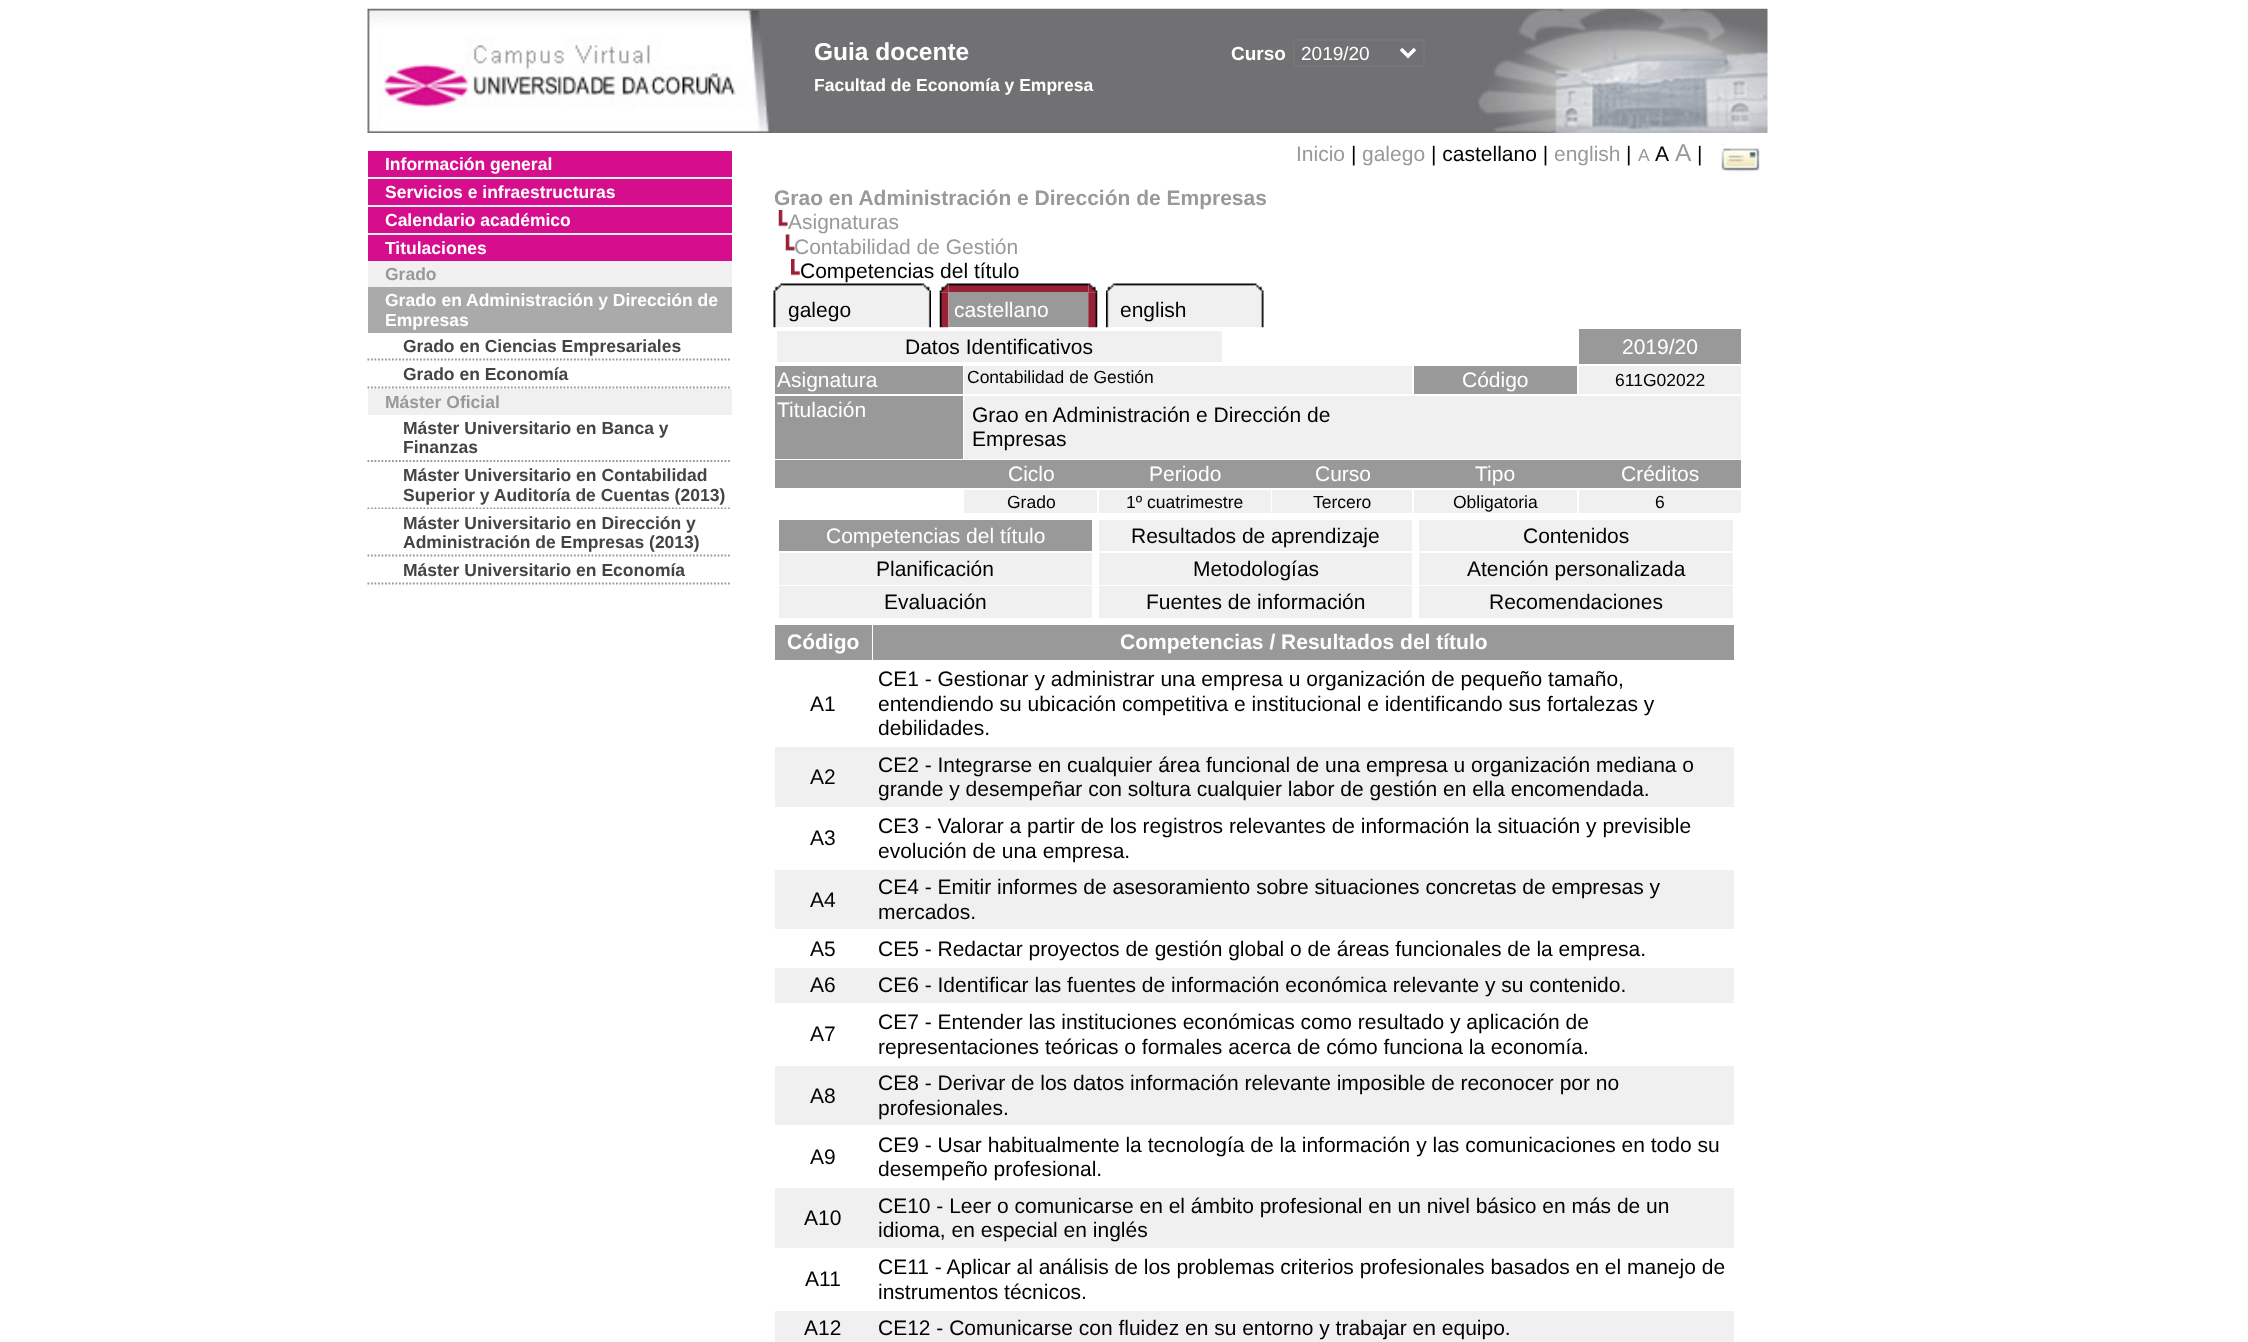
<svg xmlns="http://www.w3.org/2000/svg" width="2248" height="1342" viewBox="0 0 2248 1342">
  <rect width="100%" height="100%" fill="rgb(255,255,255)"/>
  <image x="367" y="8" width="1401" height="125" href="pic1.png"/>
  <text x="814" y="60" font-family="Liberation Sans" font-size="24.5" font-weight="bold" fill="rgb(255,255,255)">Guia docente</text>
  <text x="1231" y="60" font-family="Liberation Sans" font-size="19" font-weight="bold" fill="rgb(255,255,255)">Curso</text>
  <rect x="1294" y="40" width="130" height="26" rx="3" fill="none" stroke="rgb(118,118,118)" stroke-width="2"/>
  <path d="M1401 49L1408 56L1415 49" fill="none" stroke="rgb(255,255,255)" stroke-width="3.5"/>
  <text x="1301" y="60" font-family="Liberation Sans" font-size="19" fill="rgb(255,255,255)">2019/20</text>
  <text x="814" y="91" font-family="Liberation Sans" font-size="17.5" font-weight="bold" fill="rgb(255,255,255)">Facultad de Economía y Empresa</text>
  <text x="1296" y="161" font-family="Liberation Sans" font-size="21" fill="rgb(153,153,153)">Inicio</text>
  <text x="1351" y="161" font-family="Liberation Sans" font-size="21" fill="rgb(0,0,0)">|</text>
  <text x="1362" y="161" font-family="Liberation Sans" font-size="21" fill="rgb(153,153,153)">galego</text>
  <text x="1431" y="161" font-family="Liberation Sans" font-size="21" fill="rgb(0,0,0)">| castellano |</text>
  <text x="1554" y="161" font-family="Liberation Sans" font-size="21" fill="rgb(153,153,153)">english</text>
  <text x="1626" y="161" font-family="Liberation Sans" font-size="21" fill="rgb(0,0,0)">|</text>
  <text x="1638" y="161" font-family="Liberation Sans" font-size="17.5" fill="rgb(153,153,153)">A</text>
  <text x="1655" y="161" font-family="Liberation Sans" font-size="21" fill="rgb(0,0,0)">A</text>
  <text x="1675" y="161" font-family="Liberation Sans" font-size="24.5" fill="rgb(153,153,153)">A</text>
  <text x="1697" y="161" font-family="Liberation Sans" font-size="21" fill="rgb(0,0,0)">|</text>
  <image x="1721" y="143" width="39" height="29" href="pic2.png"/>
  <rect x="368" y="177" width="364" height="238" fill="rgb(240,240,240)"/>
  <rect x="368" y="151" width="364" height="26" fill="rgb(214,13,140)"/>
  <text x="385" y="170" font-family="Liberation Sans" font-size="17.5" font-weight="bold" fill="rgb(255,255,255)">Información general</text>
  <rect x="368" y="179" width="364" height="26" fill="rgb(214,13,140)"/>
  <text x="385" y="198" font-family="Liberation Sans" font-size="17.5" font-weight="bold" fill="rgb(255,255,255)">Servicios e infraestructuras</text>
  <rect x="368" y="207" width="364" height="26" fill="rgb(214,13,140)"/>
  <text x="385" y="226" font-family="Liberation Sans" font-size="17.5" font-weight="bold" fill="rgb(255,255,255)">Calendario académico</text>
  <rect x="368" y="235" width="364" height="26" fill="rgb(214,13,140)"/>
  <text x="385" y="254" font-family="Liberation Sans" font-size="17.5" font-weight="bold" fill="rgb(255,255,255)">Titulaciones</text>
  <text x="385" y="280" font-family="Liberation Sans" font-size="17.5" font-weight="bold" fill="rgb(153,153,153)">Grado</text>
  <rect x="368" y="287" width="364" height="46" fill="rgb(170,170,170)"/>
  <g font-family="Liberation Sans" font-size="17.5" font-weight="bold" fill="rgb(255,255,255)">
    <text>
      <tspan x="385" y="306">Grado en Administración y Dirección de</tspan>
      <tspan x="385" y="326">Empresas</tspan>
    </text>
  </g>
  <rect x="368" y="333" width="364" height="56" fill="rgb(255,255,255)"/>
  <path d="M367.5 359.5H731.5" fill="none" stroke="rgb(153,153,153)" stroke-width="1.8" stroke-dasharray="1.75 1.75"/>
  <text x="403" y="352" font-family="Liberation Sans" font-size="17.5" font-weight="bold" fill="rgb(68,68,68)">Grado en Ciencias Empresariales</text>
  <path d="M367.5 387.5H731.5" fill="none" stroke="rgb(153,153,153)" stroke-width="1.8" stroke-dasharray="1.75 1.75"/>
  <text x="403" y="380" font-family="Liberation Sans" font-size="17.5" font-weight="bold" fill="rgb(68,68,68)">Grado en Economía</text>
  <text x="385" y="408" font-family="Liberation Sans" font-size="17.5" font-weight="bold" fill="rgb(153,153,153)">Máster Oficial</text>
  <path d="M367.5 461H731.5" fill="none" stroke="rgb(153,153,153)" stroke-width="1.8" stroke-dasharray="1.75 1.75"/>
  <g font-family="Liberation Sans" font-size="17.5" font-weight="bold" fill="rgb(68,68,68)">
    <text>
      <tspan x="403" y="434">Máster Universitario en Banca y</tspan>
      <tspan x="403" y="453">Finanzas</tspan>
    </text>
  </g>
  <path d="M367.5 508.5H731.5" fill="none" stroke="rgb(153,153,153)" stroke-width="1.8" stroke-dasharray="1.75 1.75"/>
  <g font-family="Liberation Sans" font-size="17.5" font-weight="bold" fill="rgb(68,68,68)">
    <text>
      <tspan x="403" y="481">Máster Universitario en Contabilidad</tspan>
      <tspan x="403" y="501">Superior y Auditoría de Cuentas (2013)</tspan>
    </text>
  </g>
  <rect x="368" y="509" width="362" height="1" fill="rgb(255,255,255)"/>
  <path d="M367.5 555.5H731.5" fill="none" stroke="rgb(153,153,153)" stroke-width="1.8" stroke-dasharray="1.75 1.75"/>
  <g font-family="Liberation Sans" font-size="17.5" font-weight="bold" fill="rgb(68,68,68)">
    <text>
      <tspan x="403" y="529">Máster Universitario en Dirección y</tspan>
      <tspan x="403" y="548">Administración de Empresas (2013)</tspan>
    </text>
  </g>
  <path d="M367.5 583.5H731.5" fill="none" stroke="rgb(153,153,153)" stroke-width="1.8" stroke-dasharray="1.75 1.75"/>
  <text x="403" y="576" font-family="Liberation Sans" font-size="17.5" font-weight="bold" fill="rgb(68,68,68)">Máster Universitario en Economía</text>
  <text x="774" y="205" font-family="Liberation Sans" font-size="21" font-weight="bold" fill="rgb(153,153,153)">Grao en Administración e Dirección de Empresas</text>
  <image x="778" y="210" width="10" height="17" href="pic3.png"/>
  <text x="788" y="229" font-family="Liberation Sans" font-size="21" fill="rgb(153,153,153)">Asignaturas</text>
  <image x="785" y="234" width="10" height="17" href="pic4.png"/>
  <text x="794" y="254" font-family="Liberation Sans" font-size="21" fill="rgb(153,153,153)">Contabilidad de Gestión</text>
  <image x="791" y="259" width="9" height="17" href="pic5.png"/>
  <text x="800" y="278" font-family="Liberation Sans" font-size="21" fill="rgb(0,0,0)">Competencias del título</text>
  <image x="773" y="283" width="10" height="10" href="pic6.png"/>
  <image x="782" y="283" width="141" height="10" href="pic7.png"/>
  <image x="922" y="283" width="9" height="10" href="pic8.png"/>
  <image x="773" y="292" width="10" height="36" href="pic9.png"/>
  <rect x="782" y="292" width="140" height="35" fill="rgb(240,240,240)"/>
  <text x="788" y="317" font-family="Liberation Sans" font-size="21" fill="rgb(0,0,0)">galego</text>
  <image x="922" y="292" width="9" height="36" href="pic10.png"/>
  <image x="939" y="283" width="10" height="10" href="pic11.png"/>
  <image x="948" y="283" width="141" height="10" href="pic12.png"/>
  <image x="1088" y="283" width="10" height="10" href="pic13.png"/>
  <image x="939" y="292" width="10" height="36" href="pic14.png"/>
  <rect x="949" y="292" width="140" height="35" fill="rgb(153,153,153)"/>
  <text x="954" y="317" font-family="Liberation Sans" font-size="21" fill="rgb(255,255,255)">castellano</text>
  <image x="1088" y="292" width="10" height="36" href="pic15.png"/>
  <image x="1106" y="283" width="9" height="10" href="pic16.png"/>
  <image x="1114" y="283" width="141" height="10" href="pic17.png"/>
  <image x="1254" y="283" width="10" height="10" href="pic18.png"/>
  <image x="1106" y="292" width="9" height="36" href="pic19.png"/>
  <rect x="1115" y="292" width="140" height="35" fill="rgb(240,240,240)"/>
  <text x="1120" y="317" font-family="Liberation Sans" font-size="21" fill="rgb(0,0,0)">english</text>
  <image x="1255" y="292" width="9" height="36" href="pic20.png"/>
  <rect x="777" y="331" width="445" height="31" fill="rgb(240,240,240)"/>
  <text x="905" y="354" font-family="Liberation Sans" font-size="21" fill="rgb(0,0,0)">Datos Identificativos</text>
  <rect x="1579" y="329" width="162" height="35" fill="rgb(153,153,153)"/>
  <text x="1622" y="354" font-family="Liberation Sans" font-size="21" fill="rgb(255,255,255)">2019/20</text>
  <rect x="775" y="366" width="188" height="28" fill="rgb(153,153,153)"/>
  <text x="777" y="387" font-family="Liberation Sans" font-size="21" fill="rgb(255,255,255)">Asignatura</text>
  <rect x="964" y="366" width="448" height="28" fill="rgb(240,240,240)"/>
  <text x="967" y="383" font-family="Liberation Sans" font-size="17.5" fill="rgb(0,0,0)">Contabilidad de Gestión</text>
  <rect x="1414" y="366" width="163" height="28" fill="rgb(153,153,153)"/>
  <text x="1462" y="387" font-family="Liberation Sans" font-size="21" fill="rgb(255,255,255)">Código</text>
  <rect x="1579" y="366" width="162" height="28" fill="rgb(240,240,240)"/>
  <text x="1615" y="386" font-family="Liberation Sans" font-size="17.5" fill="rgb(0,0,0)">611G02022</text>
  <rect x="775" y="396" width="188" height="63" fill="rgb(153,153,153)"/>
  <text x="777" y="417" font-family="Liberation Sans" font-size="21" fill="rgb(255,255,255)">Titulación</text>
  <rect x="964" y="396" width="777" height="63" fill="rgb(240,240,240)"/>
  <g font-family="Liberation Sans" font-size="21" fill="rgb(0,0,0)">
    <text>
      <tspan x="972" y="422">Grao en Administración e Dirección de</tspan>
      <tspan x="972" y="446">Empresas</tspan>
    </text>
  </g>
  <rect x="775" y="460" width="966" height="28" fill="rgb(153,153,153)"/>
  <g font-family="Liberation Sans" font-size="21" fill="rgb(255,255,255)">
    <text x="1008" y="481">Ciclo</text>
    <text x="1149" y="481">Periodo</text>
    <text x="1315" y="481">Curso</text>
    <text x="1475" y="481">Tipo</text>
    <text x="1621" y="481">Créditos</text>
  </g>
  <rect x="964" y="490" width="133" height="23" fill="rgb(240,240,240)"/>
  <text x="1007" y="508" font-family="Liberation Sans" font-size="17.5" fill="rgb(0,0,0)">Grado</text>
  <rect x="1099" y="490" width="172" height="23" fill="rgb(240,240,240)"/>
  <text x="1126" y="508" font-family="Liberation Sans" font-size="17.5" fill="rgb(0,0,0)">1º cuatrimestre</text>
  <rect x="1272" y="490" width="140" height="23" fill="rgb(240,240,240)"/>
  <text x="1313" y="508" font-family="Liberation Sans" font-size="17.5" fill="rgb(0,0,0)">Tercero</text>
  <rect x="1414" y="490" width="163" height="23" fill="rgb(240,240,240)"/>
  <text x="1453" y="508" font-family="Liberation Sans" font-size="17.5" fill="rgb(0,0,0)">Obligatoria</text>
  <rect x="1579" y="490" width="162" height="23" fill="rgb(240,240,240)"/>
  <text x="1655" y="508" font-family="Liberation Sans" font-size="17.5" fill="rgb(0,0,0)">6</text>
  <rect x="779" y="520" width="313" height="31" fill="rgb(153,153,153)"/>
  <text x="826" y="543" font-family="Liberation Sans" font-size="21" fill="rgb(255,255,255)">Competencias del título</text>
  <rect x="1099" y="520" width="313" height="31" fill="rgb(240,240,240)"/>
  <text x="1131" y="543" font-family="Liberation Sans" font-size="21" fill="rgb(0,0,0)">Resultados de aprendizaje</text>
  <rect x="1419" y="520" width="314" height="31" fill="rgb(240,240,240)"/>
  <text x="1523" y="543" font-family="Liberation Sans" font-size="21" fill="rgb(0,0,0)">Contenidos</text>
  <rect x="779" y="553" width="313" height="32" fill="rgb(240,240,240)"/>
  <text x="876" y="576" font-family="Liberation Sans" font-size="21" fill="rgb(0,0,0)">Planificación</text>
  <rect x="1099" y="553" width="313" height="32" fill="rgb(240,240,240)"/>
  <text x="1193" y="576" font-family="Liberation Sans" font-size="21" fill="rgb(0,0,0)">Metodologías</text>
  <rect x="1419" y="553" width="314" height="32" fill="rgb(240,240,240)"/>
  <text x="1467" y="576" font-family="Liberation Sans" font-size="21" fill="rgb(0,0,0)">Atención personalizada</text>
  <rect x="779" y="586" width="313" height="32" fill="rgb(240,240,240)"/>
  <text x="884" y="609" font-family="Liberation Sans" font-size="21" fill="rgb(0,0,0)">Evaluación</text>
  <rect x="1099" y="586" width="313" height="32" fill="rgb(240,240,240)"/>
  <text x="1146" y="609" font-family="Liberation Sans" font-size="21" fill="rgb(0,0,0)">Fuentes de información</text>
  <rect x="1419" y="586" width="314" height="32" fill="rgb(240,240,240)"/>
  <text x="1489" y="609" font-family="Liberation Sans" font-size="21" fill="rgb(0,0,0)">Recomendaciones</text>
  <rect x="775" y="625" width="97" height="35" fill="rgb(153,153,153)"/>
  <text x="787" y="649" font-family="Liberation Sans" font-size="21" font-weight="bold" fill="rgb(255,255,255)">Código</text>
  <rect x="873" y="625" width="861" height="35" fill="rgb(153,153,153)"/>
  <text x="1120" y="649" font-family="Liberation Sans" font-size="21" font-weight="bold" fill="rgb(255,255,255)">Competencias / Resultados del título</text>
  <g font-family="Liberation Sans" font-size="21" fill="rgb(0,0,0)">
    <text x="810" y="711">A1</text>
    <text>
      <tspan x="878" y="686">CE1 - Gestionar y administrar una empresa u organización de pequeño tamaño,</tspan>
      <tspan x="878" y="711">entendiendo su ubicación competitiva e institucional e identificando sus fortalezas y</tspan>
      <tspan x="878" y="735">debilidades.</tspan>
    </text>
  </g>
  <rect x="775" y="747" width="959" height="60" fill="rgb(240,240,240)"/>
  <g font-family="Liberation Sans" font-size="21" fill="rgb(0,0,0)">
    <text x="810" y="784">A2</text>
    <text>
      <tspan x="878" y="772">CE2 - Integrarse en cualquier área funcional de una empresa u organización mediana o</tspan>
      <tspan x="878" y="796">grande y desempeñar con soltura cualquier labor de gestión en ella encomendada.</tspan>
    </text>
    <text x="810" y="845">A3</text>
    <text>
      <tspan x="878" y="833">CE3 - Valorar a partir de los registros relevantes de información la situación y previsible</tspan>
      <tspan x="878" y="858">evolución de una empresa.</tspan>
    </text>
  </g>
  <rect x="775" y="870" width="959" height="59" fill="rgb(240,240,240)"/>
  <g font-family="Liberation Sans" font-size="21" fill="rgb(0,0,0)">
    <text x="810" y="907">A4</text>
    <text>
      <tspan x="878" y="894">CE4 - Emitir informes de asesoramiento sobre situaciones concretas de empresas y</tspan>
      <tspan x="878" y="919">mercados.</tspan>
    </text>
    <text x="810" y="956">A5</text>
    <text x="878" y="956">CE5 - Redactar proyectos de gestión global o de áreas funcionales de la empresa.</text>
  </g>
  <rect x="775" y="968" width="959" height="35" fill="rgb(240,240,240)"/>
  <g font-family="Liberation Sans" font-size="21" fill="rgb(0,0,0)">
    <text x="810" y="992">A6</text>
    <text x="878" y="992">CE6 - Identificar las fuentes de información económica relevante y su contenido.</text>
    <text x="810" y="1041">A7</text>
    <text>
      <tspan x="878" y="1029">CE7 - Entender las instituciones económicas como resultado y aplicación de</tspan>
      <tspan x="878" y="1054">representaciones teóricas o formales acerca de cómo funciona la economía.</tspan>
    </text>
  </g>
  <rect x="775" y="1066" width="959" height="59" fill="rgb(240,240,240)"/>
  <g font-family="Liberation Sans" font-size="21" fill="rgb(0,0,0)">
    <text x="810" y="1103">A8</text>
    <text>
      <tspan x="878" y="1090">CE8 - Derivar de los datos información relevante imposible de reconocer por no</tspan>
      <tspan x="878" y="1115">profesionales.</tspan>
    </text>
    <text x="810" y="1164">A9</text>
    <text>
      <tspan x="878" y="1152">CE9 - Usar habitualmente la tecnología de la información y las comunicaciones en todo su</tspan>
      <tspan x="878" y="1176">desempeño profesional.</tspan>
    </text>
  </g>
  <rect x="775" y="1188" width="959" height="60" fill="rgb(240,240,240)"/>
  <g font-family="Liberation Sans" font-size="21" fill="rgb(0,0,0)">
    <text x="804" y="1225">A10</text>
    <text>
      <tspan x="878" y="1213">CE10 - Leer o comunicarse en el ámbito profesional en un nivel básico en más de un</tspan>
      <tspan x="878" y="1237">idioma, en especial en inglés</tspan>
    </text>
    <text x="805" y="1286">A11</text>
    <text>
      <tspan x="878" y="1274">CE11 - Aplicar al análisis de los problemas criterios profesionales basados en el manejo de</tspan>
      <tspan x="878" y="1299">instrumentos técnicos.</tspan>
    </text>
  </g>
  <rect x="775" y="1311" width="959" height="31" fill="rgb(240,240,240)"/>
  <g font-family="Liberation Sans" font-size="21" fill="rgb(0,0,0)">
    <text x="804" y="1335">A12</text>
    <text x="878" y="1335">CE12 - Comunicarse con fluidez en su entorno y trabajar en equipo.</text>
  </g>
</svg>
